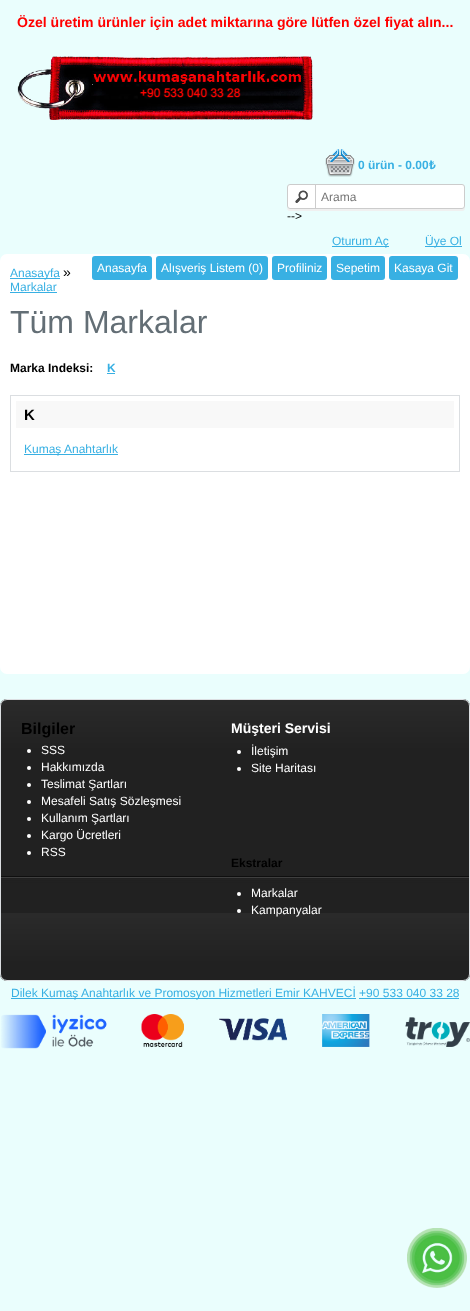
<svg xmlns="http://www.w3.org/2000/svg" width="470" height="1311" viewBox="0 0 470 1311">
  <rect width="100%" height="100%" fill="rgb(234,254,253)"/>
  <text x="17" y="27" font-family="Liberation Sans" font-size="14.05" font-weight="bold" fill="rgb(255,0,0)">Özel üretim ürünler için adet miktarına göre lütfen özel fiyat alın...</text>
  <image x="17" y="56" width="296" height="64" href="pic1.png"/>
  <image x="325" y="149" width="30" height="28" href="pic2.png"/>
  <text x="358" y="169" font-family="Liberation Sans" font-size="12" font-weight="bold" fill="rgb(56,176,227)">0 ürün - 0.00</text>
  <text x="429" y="169" font-family="Noto Sans" font-size="12" font-weight="bold" fill="rgb(56,176,227)">₺</text>
  <path d="M287 206V208C287 210 288 211 290 211H462C464 211 465 210 465 208V206C465 208 464 209 462 209H290C288 209 287 208 287 206Z" fill="rgb(240,240,240)"/>
  <rect x="287.5" y="184.5" width="177" height="24" rx="2.5" fill="rgb(255,255,255)" stroke="rgb(204,204,204)"/>
  <image x="295" y="190" width="13" height="13" href="pic3.png"/>
  <rect x="315" y="184" width="1" height="24" fill="rgb(204,204,204)"/>
  <text x="321" y="201" font-family="Liberation Sans" font-size="12" fill="rgb(117,117,117)">Arama</text>
  <text x="287" y="220" font-family="Liberation Sans" font-size="12" fill="rgb(0,0,0)">--&gt;</text>
  <rect x="332" y="246" width="57" height="1" fill="rgb(56,176,227)"/>
  <text x="332" y="245" font-family="Liberation Sans" font-size="12" fill="rgb(56,176,227)">Oturum Aç</text>
  <rect x="425" y="246" width="37" height="1" fill="rgb(56,176,227)"/>
  <text x="425" y="245" font-family="Liberation Sans" font-size="12" fill="rgb(56,176,227)">Üye Ol</text>
  <rect x="0" y="254" width="470" height="420" rx="7" fill="rgb(255,255,255)"/>
  <rect x="92" y="256" width="60" height="24" rx="3" fill="rgb(56,176,227)"/>
  <text x="97" y="272" font-family="Liberation Sans" font-size="12" fill="rgb(255,255,255)">Anasayfa</text>
  <rect x="156" y="256" width="112" height="24" rx="3" fill="rgb(56,176,227)"/>
  <text x="161" y="272" font-family="Liberation Sans" font-size="12" fill="rgb(255,255,255)">Alışveriş Listem (0)</text>
  <rect x="272" y="256" width="55" height="24" rx="3" fill="rgb(56,176,227)"/>
  <text x="277" y="272" font-family="Liberation Sans" font-size="12" fill="rgb(255,255,255)">Profiliniz</text>
  <rect x="331" y="256" width="54" height="24" rx="3" fill="rgb(56,176,227)"/>
  <text x="336" y="272" font-family="Liberation Sans" font-size="12" fill="rgb(255,255,255)">Sepetim</text>
  <rect x="389" y="256" width="69" height="24" rx="3" fill="rgb(56,176,227)"/>
  <text x="394" y="272" font-family="Liberation Sans" font-size="12" fill="rgb(255,255,255)">Kasaya Git</text>
  <rect x="10" y="278" width="50" height="1" fill="rgb(56,176,227)"/>
  <text x="10" y="277" font-family="Liberation Sans" font-size="12" fill="rgb(56,176,227)">Anasayfa</text>
  <text x="63" y="277" font-family="Liberation Sans" font-size="14" fill="rgb(0,0,0)">»</text>
  <text x="10" y="291" font-family="Liberation Sans" font-size="12" fill="rgb(56,176,227)">Markalar</text>
  <rect x="10" y="292" width="47" height="1" fill="rgb(56,176,227)"/>
  <text x="10" y="333" font-family="Liberation Sans" font-size="32" fill="rgb(99,110,117)">Tüm Markalar</text>
  <text x="10" y="372" font-family="Liberation Sans" font-size="12" font-weight="bold" fill="rgb(0,0,0)">Marka Indeksi:</text>
  <text x="107" y="372" font-family="Liberation Sans" font-size="12" font-weight="bold" fill="rgb(56,176,227)">K</text>
  <rect x="107" y="373" width="8" height="1" fill="rgb(56,176,227)"/>
  <rect x="10.5" y="395.5" width="449" height="76" fill="none" stroke="rgb(219,222,225)"/>
  <rect x="16" y="401" width="438" height="27" fill="rgb(248,248,248)"/>
  <text x="24" y="420" font-family="Liberation Sans" font-size="15" font-weight="bold" fill="rgb(0,0,0)">K</text>
  <rect x="24" y="454" width="94" height="1" fill="rgb(56,176,227)"/>
  <text x="24" y="453" font-family="Liberation Sans" font-size="12" fill="rgb(56,176,227)">Kumaş Anahtarlık</text>
  <image x="0" y="699" width="470" height="282" href="pic4.png"/>
  <rect x="0.5" y="699.5" width="469" height="281" rx="6.5" fill="none" stroke="rgb(219,222,225)"/>
  <text x="21" y="734" font-family="Liberation Sans" font-size="16" font-weight="bold" fill="rgb(0,0,0)">Bilgiler</text>
  <circle cx="29" cy="751" r="2" fill="rgb(255,255,255)"/>
  <text x="41" y="754" font-family="Liberation Sans" font-size="12" fill="rgb(255,255,255)">SSS</text>
  <circle cx="29" cy="768" r="2" fill="rgb(255,255,255)"/>
  <text x="41" y="771" font-family="Liberation Sans" font-size="12" fill="rgb(255,255,255)">Hakkımızda</text>
  <circle cx="29" cy="785" r="2" fill="rgb(255,255,255)"/>
  <text x="41" y="788" font-family="Liberation Sans" font-size="12" fill="rgb(255,255,255)">Teslimat Şartları</text>
  <circle cx="29" cy="802" r="2" fill="rgb(255,255,255)"/>
  <text x="41" y="805" font-family="Liberation Sans" font-size="12" fill="rgb(255,255,255)">Mesafeli Satış Sözleşmesi</text>
  <circle cx="29" cy="819" r="2" fill="rgb(255,255,255)"/>
  <text x="41" y="822" font-family="Liberation Sans" font-size="12" fill="rgb(255,255,255)">Kullanım Şartları</text>
  <circle cx="29" cy="836" r="2" fill="rgb(255,255,255)"/>
  <text x="41" y="839" font-family="Liberation Sans" font-size="12" fill="rgb(255,255,255)">Kargo Ücretleri</text>
  <circle cx="29" cy="853" r="2" fill="rgb(255,255,255)"/>
  <text x="41" y="856" font-family="Liberation Sans" font-size="12" fill="rgb(255,255,255)">RSS</text>
  <text x="231" y="733" font-family="Liberation Sans" font-size="14" font-weight="bold" fill="rgb(255,255,255)">Müşteri Servisi</text>
  <circle cx="239" cy="752" r="2" fill="rgb(255,255,255)"/>
  <text x="251" y="755" font-family="Liberation Sans" font-size="12" fill="rgb(255,255,255)">İletişim</text>
  <circle cx="239" cy="769" r="2" fill="rgb(255,255,255)"/>
  <text x="251" y="772" font-family="Liberation Sans" font-size="12" fill="rgb(255,255,255)">Site Haritası</text>
  <text x="231" y="867" font-family="Liberation Sans" font-size="12" font-weight="bold" fill="rgb(0,0,0)">Ekstralar</text>
  <circle cx="239" cy="894" r="2" fill="rgb(255,255,255)"/>
  <text x="251" y="897" font-family="Liberation Sans" font-size="12" fill="rgb(255,255,255)">Markalar</text>
  <circle cx="239" cy="911" r="2" fill="rgb(255,255,255)"/>
  <text x="251" y="914" font-family="Liberation Sans" font-size="12" fill="rgb(255,255,255)">Kampanyalar</text>
  <rect x="11" y="998" width="345" height="1" fill="rgb(56,176,227)"/>
  <text x="11" y="997" font-family="Liberation Sans" font-size="12" fill="rgb(56,176,227)">Dilek Kumaş Anahtarlık ve Promosyon Hizmetleri Emir KAHVECİ +90 533 040 33 28</text>
  <rect x="359" y="998" width="100" height="1" fill="rgb(56,176,227)"/>
  <image x="1" y="1014" width="469" height="35" href="pic5.png"/>
  <image x="407" y="1228" width="60" height="60" href="pic6.png"/>
</svg>
